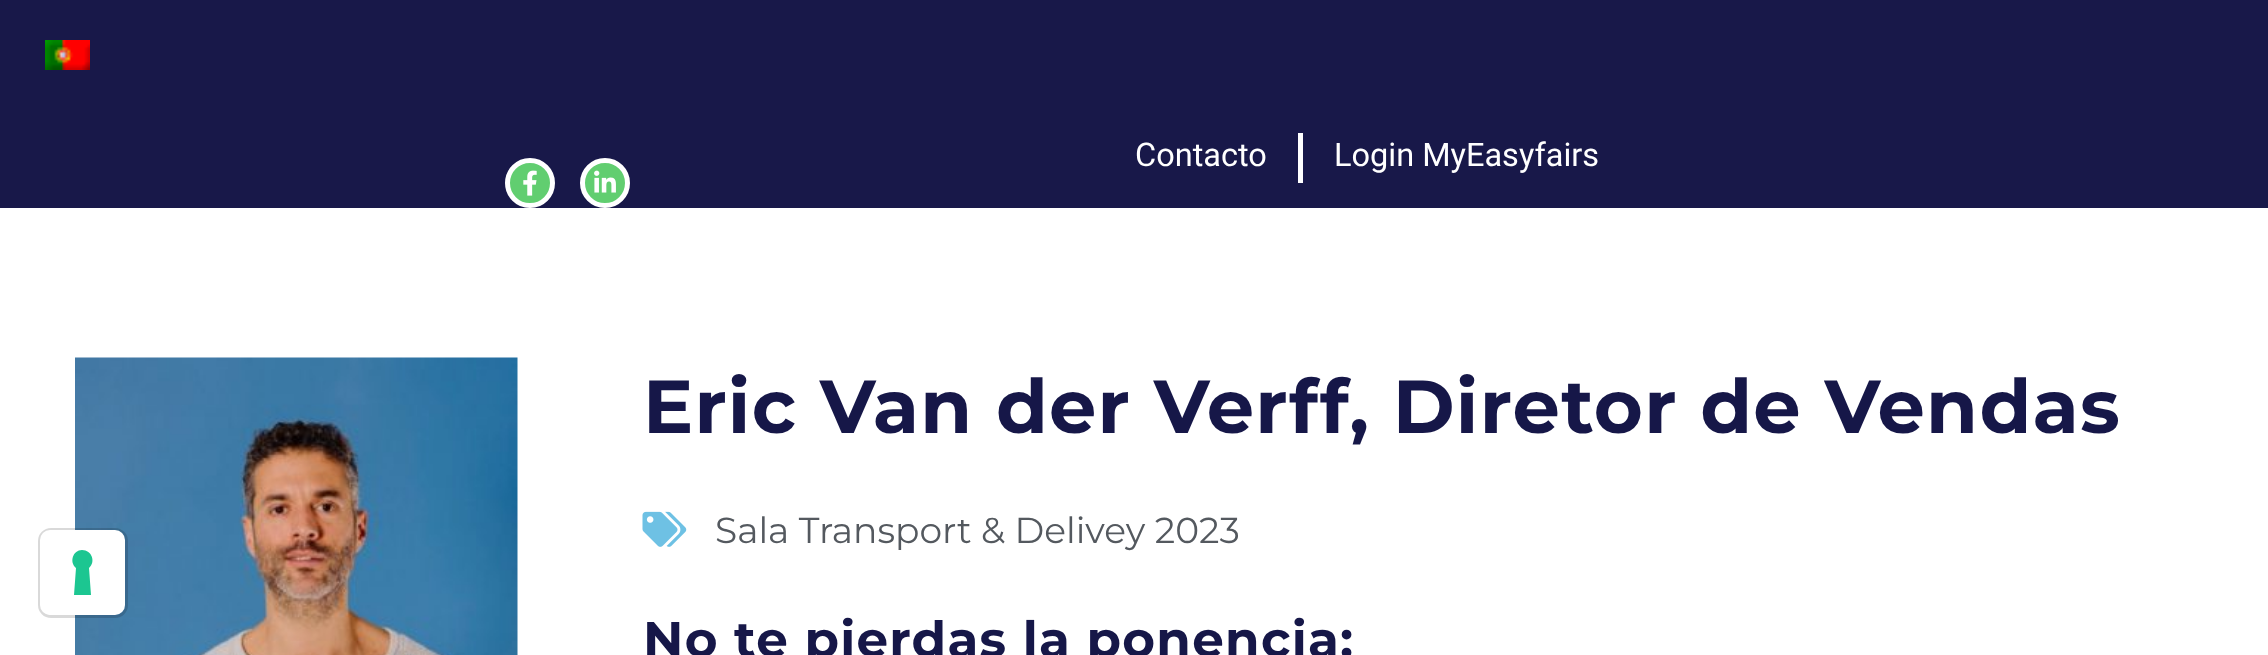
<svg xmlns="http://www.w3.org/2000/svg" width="2268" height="655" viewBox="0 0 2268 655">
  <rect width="100%" height="100%" fill="rgb(255,255,255)"/>
  <rect x="0" y="0" width="2268" height="208" fill="rgb(24,24,73)"/>
  <image x="45" y="40" width="45" height="30" href="pic1.png"/>
  <circle cx="530" cy="183" r="22.5" fill="rgb(97,206,112)" stroke="rgb(255,255,255)" stroke-width="5"/>
  <image x="523" y="170" width="14" height="26" href="pic2.png"/>
  <circle cx="605" cy="183" r="22.5" fill="rgb(97,206,112)" stroke="rgb(255,255,255)" stroke-width="5"/>
  <image x="594" y="170" width="22" height="23" href="pic3.png"/>
  <text x="1135" y="166" font-family="Roboto" font-size="32.5" fill="rgb(255,255,255)">Contacto</text>
  <rect x="1298" y="133" width="5" height="50" fill="rgb(255,255,255)"/>
  <text x="1334" y="166" font-family="Roboto" font-size="32.5" fill="rgb(255,255,255)">Login MyEasyfairs</text>
  <image x="75" y="357" width="443" height="298" href="pic4.png"/>
  <rect x="39.5" y="529.5" width="87" height="87" rx="11.5" fill="none" stroke="rgba(0,0,0,0.15)" stroke-width="3"/>
  <rect x="40" y="530" width="85" height="85" rx="10" fill="rgb(255,255,255)"/>
  <path d="M82 550C92 550 96 562 89 568L91 595H74L76 568C69 562 73 550 82 550Z" fill="rgb(28,198,145)" fill-rule="evenodd"/>
  <text x="643" y="433" font-family="Montserrat" font-size="75" font-weight="bold" letter-spacing="1.25" fill="rgb(22,23,72)">Eric Van der Verff, Diretor de Vendas</text>
  <image x="642" y="511" width="45" height="36" href="pic5.png"/>
  <text x="715" y="543" font-family="Montserrat" font-size="36" fill="rgb(84,89,95)">Sala Transport &amp; Delivey 2023</text>
  <text x="643" y="657" font-family="Montserrat" font-size="50" font-weight="bold" letter-spacing="1.25" fill="rgb(22,23,72)">No te pierdas la ponencia:</text>
</svg>
